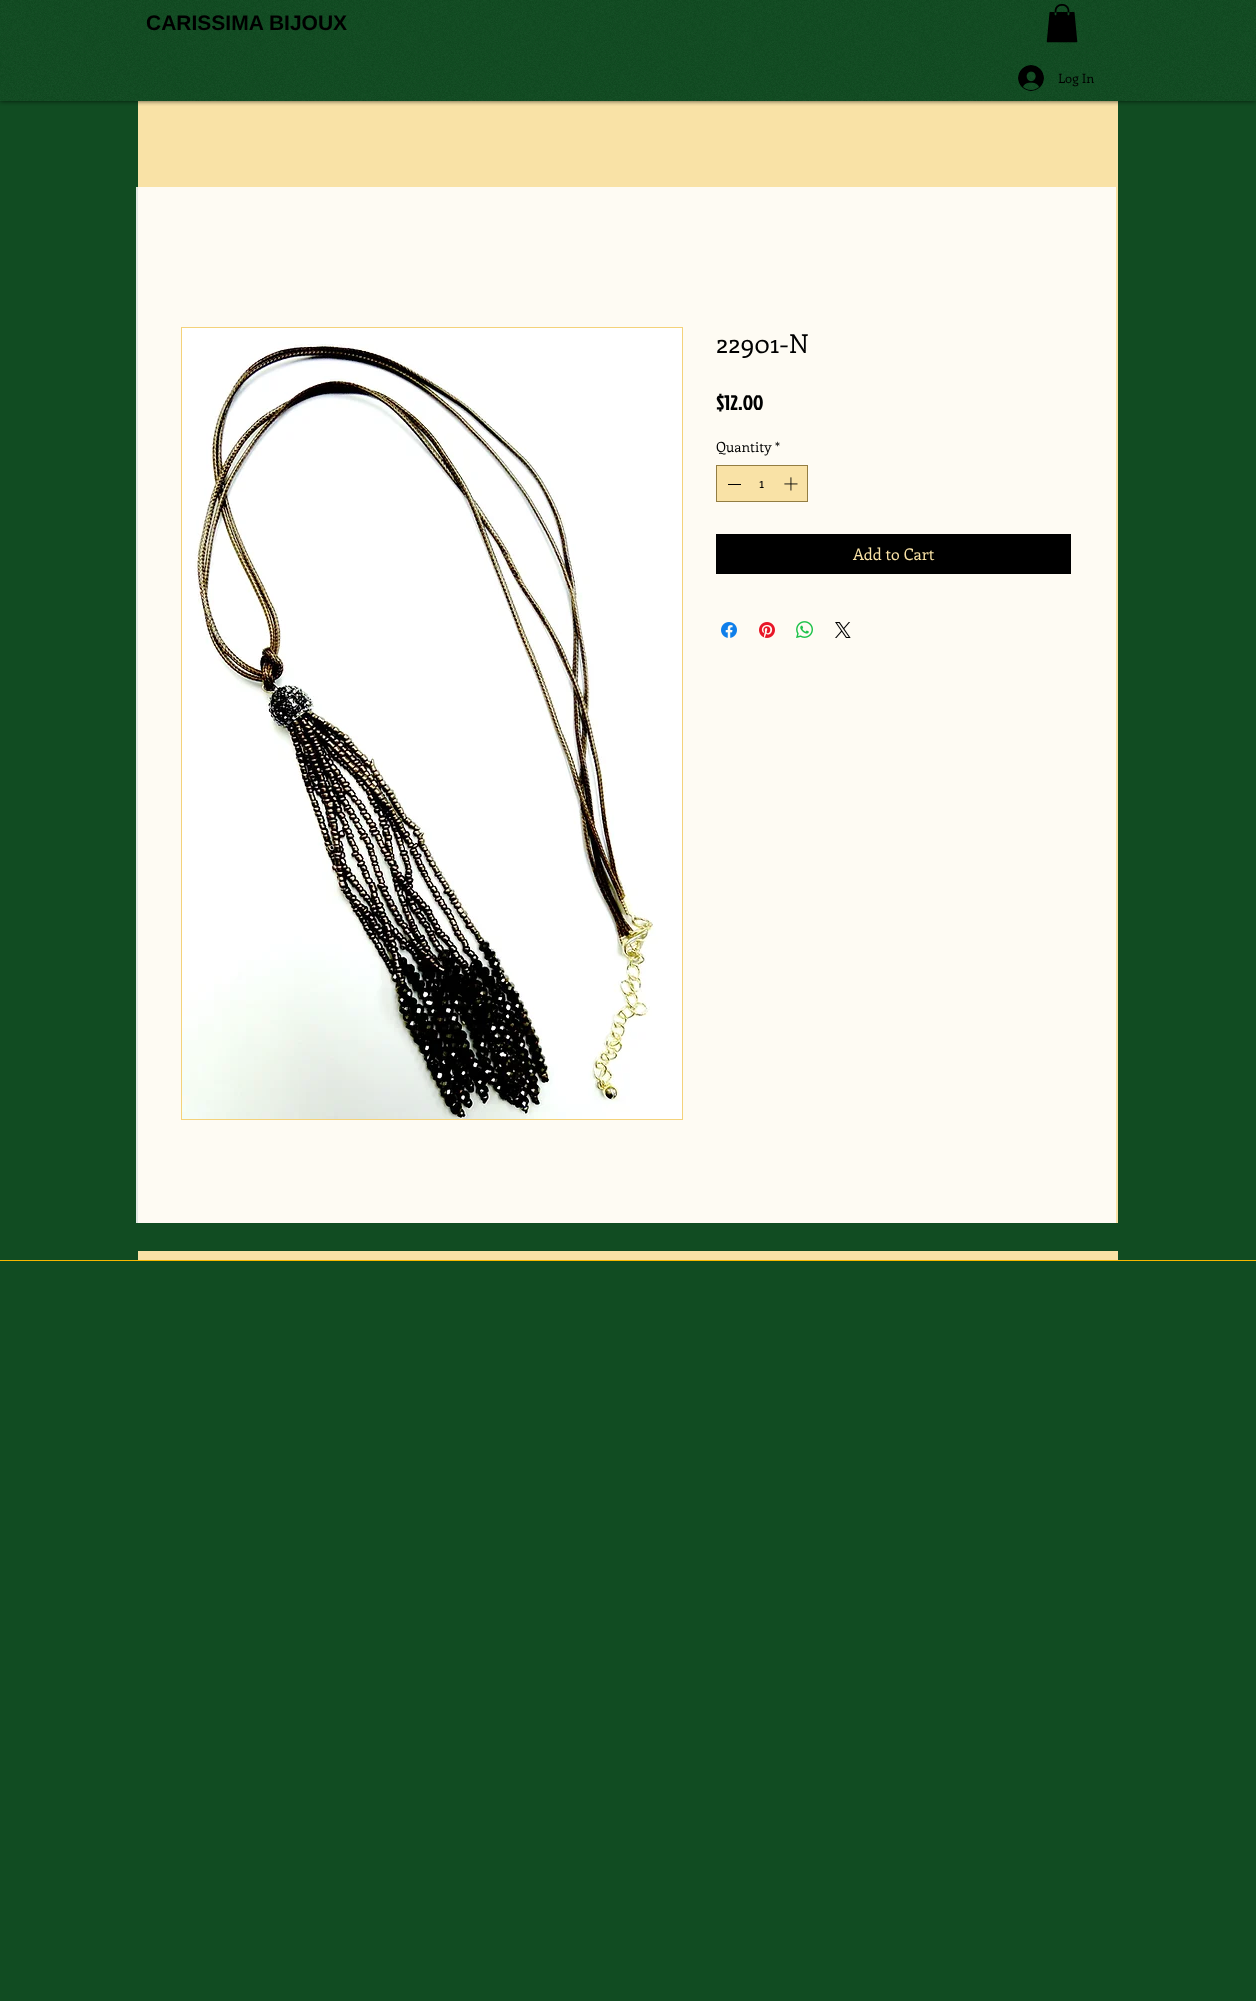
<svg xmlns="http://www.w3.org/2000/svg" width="1256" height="2001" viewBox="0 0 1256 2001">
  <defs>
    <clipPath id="clip1"><rect x="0" y="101" width="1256" height="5"/></clipPath>
  </defs>
  <rect width="100%" height="100%" fill="rgb(17,76,34)"/>
  <rect x="136" y="187" width="2" height="1036" fill="rgb(224,232,226)"/>
  <rect x="138" y="101" width="980" height="1122" fill="rgb(249,226,166)"/>
  <g clip-path="url(#clip1)">
    <rect x="0" y="0" width="1256" height="101" fill="rgba(0,0,0,0.7)" filter="blur(2.5px)"/>
  </g>
  <image x="0" y="0" width="1256" height="101" href="pic1.png"/>
  <text x="146" y="30" font-family="Liberation Sans" font-size="21" font-weight="bold" fill="rgb(0,0,0)">CARISSIMA BIJOUX</text>
  <image x="1046" y="4" width="32" height="39" href="pic2.png"/>
  <image x="1018" y="65" width="26" height="26" href="pic3.png"/>
  <text x="1058" y="83" font-family="Enriqueta" font-size="13" fill="rgb(0,0,0)">Log In</text>
  <rect x="138" y="187" width="978" height="1036" fill="rgb(254,251,243)"/>
  <rect x="181.5" y="327.5" width="501" height="792" fill="none" stroke="rgb(244,210,122)"/>
  <image x="182" y="328" width="500" height="791" href="pic4.png"/>
  <text x="716" y="353" font-family="Enriqueta" font-size="26" fill="rgb(0,0,0)">22901-N</text>
  <text x="716" y="410" font-family="Jockey One" font-size="21" fill="rgb(0,0,0)">$12.00</text>
  <g font-family="Enriqueta" font-size="14" fill="rgb(0,0,0)">
    <text x="716" y="452">Quantity</text>
    <text x="775" y="452">*</text>
  </g>
  <rect x="716.5" y="465.5" width="91" height="36" fill="rgb(249,226,166)" stroke="rgb(147,125,66)"/>
  <rect x="728" y="484" width="13" height="1" fill="rgb(0,0,0)"/>
  <text x="759" y="488" font-family="Enriqueta" font-size="14" fill="rgb(0,0,0)">1</text>
  <image x="784" y="477" width="14" height="14" href="pic5.png"/>
  <rect x="716" y="534" width="355" height="40" fill="rgb(0,0,0)"/>
  <text x="853" y="560" font-family="Enriqueta" font-size="16" fill="rgb(249,226,166)">Add to Cart</text>
  <image x="721" y="622" width="16" height="16" href="pic6.png"/>
  <image x="759" y="622" width="16" height="16" href="pic7.png"/>
  <image x="796" y="621" width="17" height="17" href="pic8.png"/>
  <image x="835" y="622" width="16" height="16" href="pic9.png"/>
  <rect x="138" y="1251" width="980" height="9" fill="rgb(249,226,166)"/>
  <rect x="0" y="1260" width="1256" height="1" fill="rgb(247,184,0)"/>
</svg>
